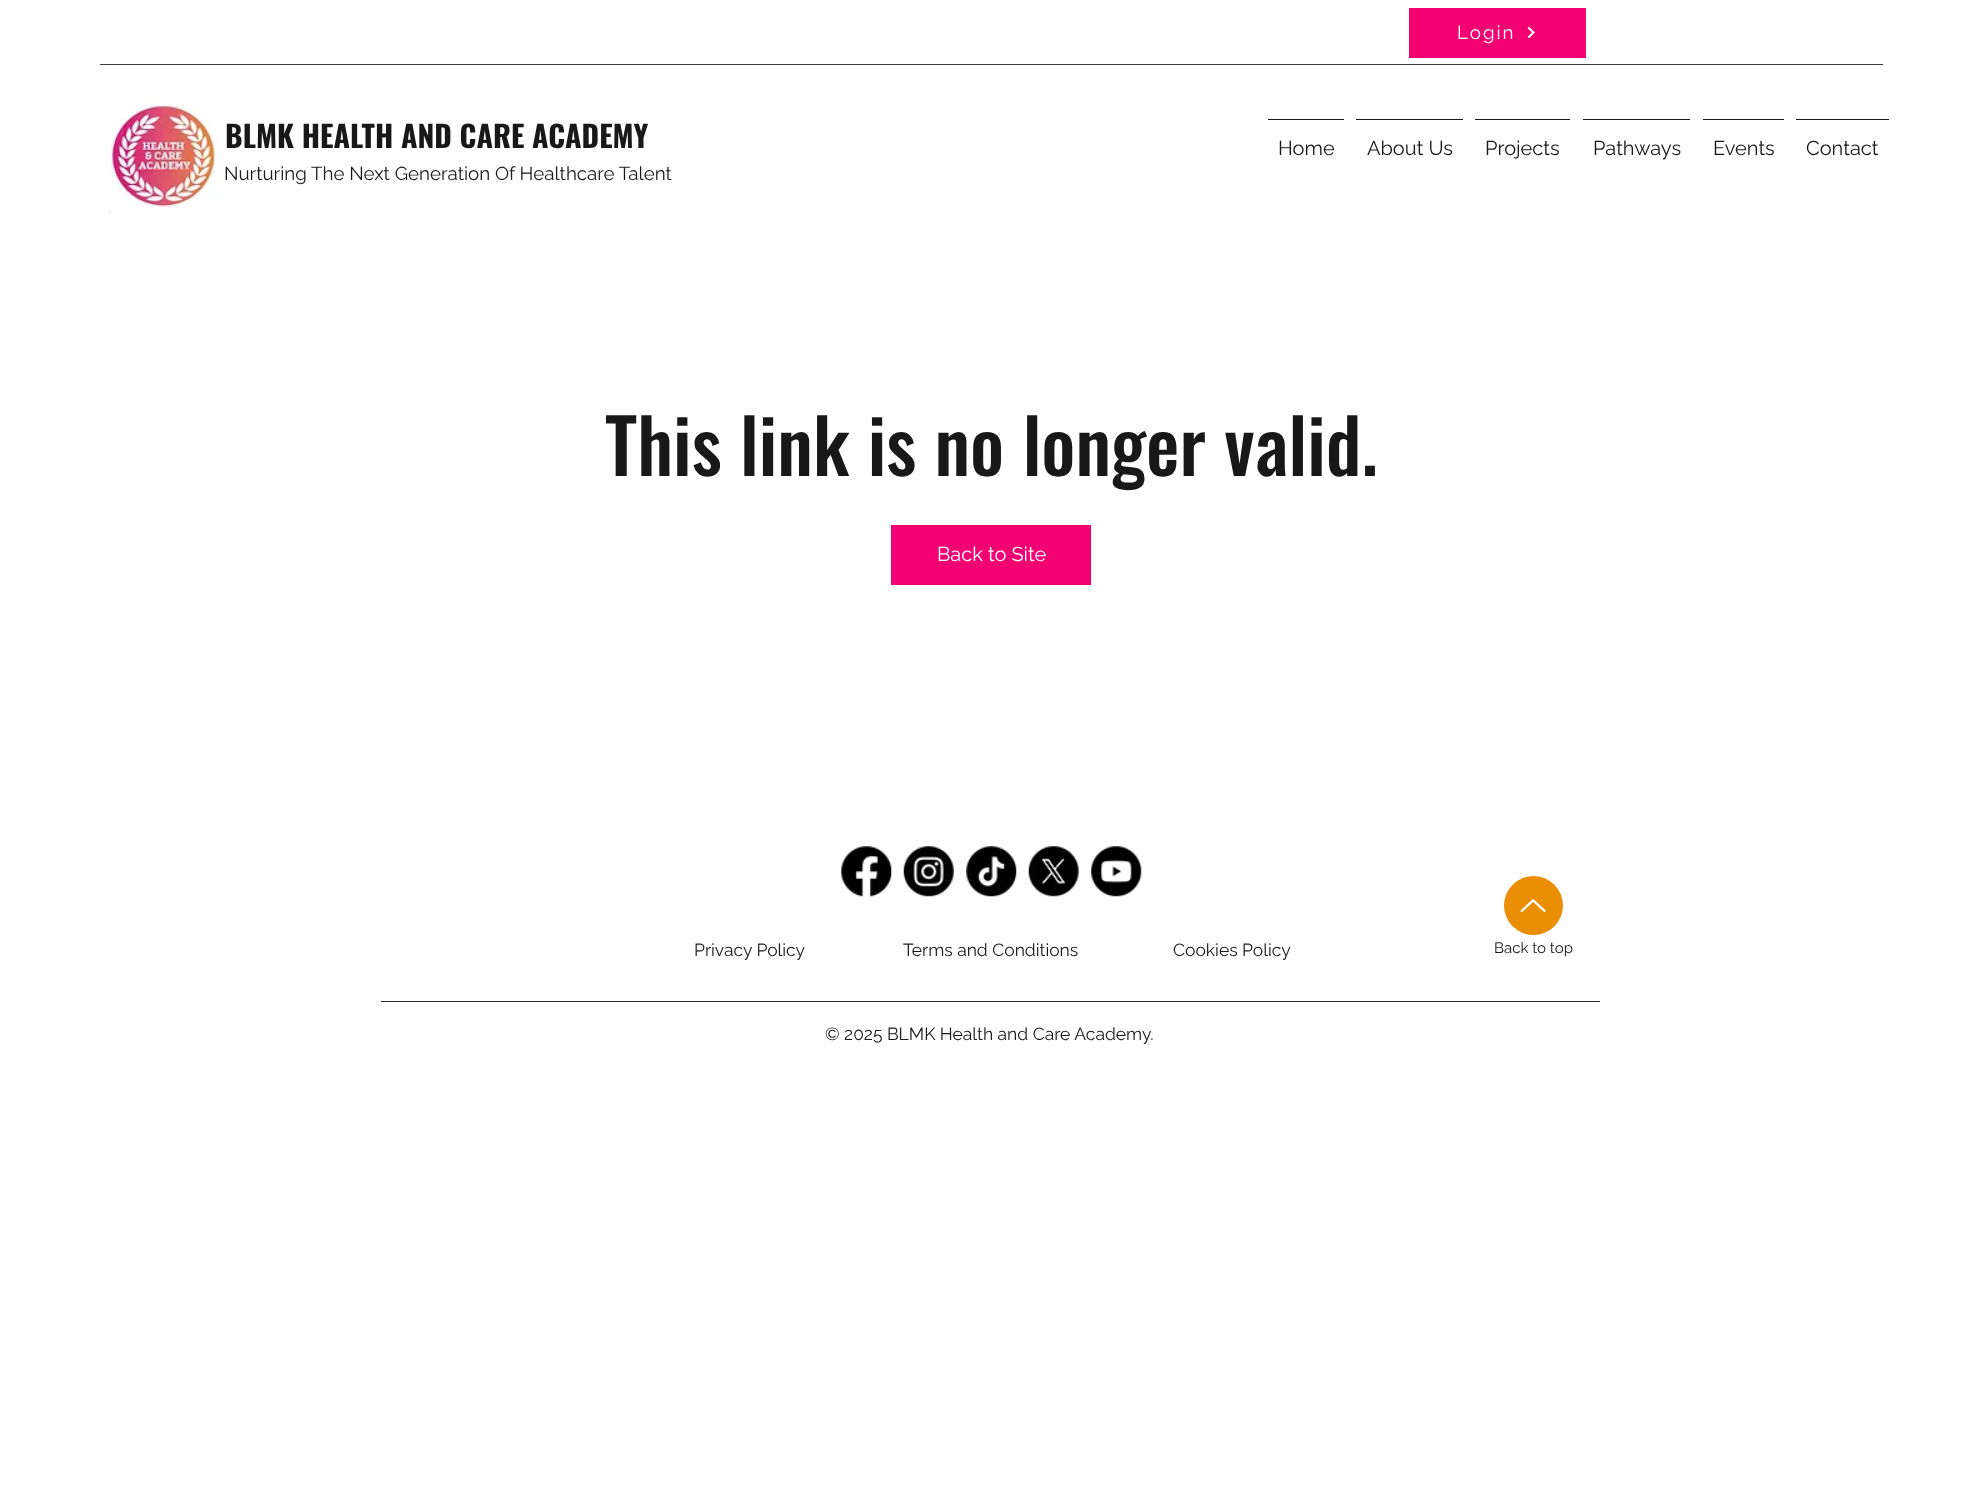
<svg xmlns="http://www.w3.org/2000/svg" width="1982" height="1512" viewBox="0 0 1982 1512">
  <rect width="100%" height="100%" fill="rgb(255,255,255)"/>
  <rect x="1409" y="8" width="177" height="50" fill="rgb(243,1,114)"/>
  <text x="1457" y="39" font-family="Raleway" font-size="18.75" letter-spacing="2" fill="rgb(255,255,255)">Login</text>
  <image x="1527" y="26" width="8" height="13" href="pic1.png"/>
  <rect x="100" y="64" width="1783" height="1" fill="rgb(59,59,59)"/>
  <image x="108" y="99" width="114" height="114" href="pic2.png"/>
  <text x="225" y="148" font-family="Oswald" font-size="30" font-weight="bold" fill="rgb(24,24,24)">BLMK HEALTH AND CARE ACADEMY</text>
  <text x="224" y="180" font-family="Raleway" font-size="18.75" fill="rgb(24,24,24)">Nurturing The Next Generation Of Healthcare Talent</text>
  <rect x="1268" y="119" width="76" height="1" fill="rgb(24,24,24)"/>
  <text x="1278" y="155" font-family="Raleway" font-size="20" fill="rgb(24,24,24)">Home</text>
  <rect x="1356" y="119" width="107" height="1" fill="rgb(24,24,24)"/>
  <text x="1367" y="155" font-family="Raleway" font-size="20" fill="rgb(24,24,24)">About Us</text>
  <rect x="1475" y="119" width="95" height="1" fill="rgb(24,24,24)"/>
  <text x="1485" y="155" font-family="Raleway" font-size="20" fill="rgb(24,24,24)">Projects</text>
  <rect x="1583" y="119" width="107" height="1" fill="rgb(24,24,24)"/>
  <text x="1593" y="155" font-family="Raleway" font-size="20" fill="rgb(24,24,24)">Pathways</text>
  <rect x="1703" y="119" width="81" height="1" fill="rgb(24,24,24)"/>
  <text x="1713" y="155" font-family="Raleway" font-size="20" fill="rgb(24,24,24)">Events</text>
  <rect x="1796" y="119" width="93" height="1" fill="rgb(24,24,24)"/>
  <text x="1806" y="155" font-family="Raleway" font-size="20" fill="rgb(24,24,24)">Contact</text>
  <text x="605" y="476" font-family="Oswald" font-size="75" font-weight="500" fill="rgb(24,24,24)">This link is no longer valid.</text>
  <rect x="891" y="525" width="200" height="60" fill="rgb(243,1,114)"/>
  <text x="937" y="561" font-family="Raleway" font-size="20" fill="rgb(255,255,255)">Back to Site</text>
  <image x="841" y="846" width="51" height="51" href="pic3.png"/>
  <image x="903" y="846" width="51" height="51" href="pic4.png"/>
  <image x="966" y="846" width="51" height="51" href="pic5.png"/>
  <image x="1028" y="846" width="51" height="51" href="pic6.png"/>
  <image x="1091" y="846" width="51" height="51" href="pic7.png"/>
  <circle cx="1533.5" cy="905.5" r="29.5" fill="rgb(234,142,5)"/>
  <image x="1520" y="899" width="26" height="13" href="pic8.png"/>
  <g font-family="Raleway" font-size="17.5" fill="rgb(24,24,24)">
    <text x="694" y="956">Privacy Policy</text>
    <text x="903" y="956">Terms and Conditions</text>
    <text x="1173" y="956">Cookies Policy</text>
  </g>
  <text x="1494" y="953" font-family="Raleway" font-size="15" fill="rgb(24,24,24)">Back to top</text>
  <rect x="381" y="1001" width="1219" height="1" fill="rgb(40,38,38)"/>
  <text x="825" y="1040" font-family="Raleway" font-size="17.5" fill="rgb(24,24,24)">© 2025 BLMK Health and Care Academy.</text>
</svg>
